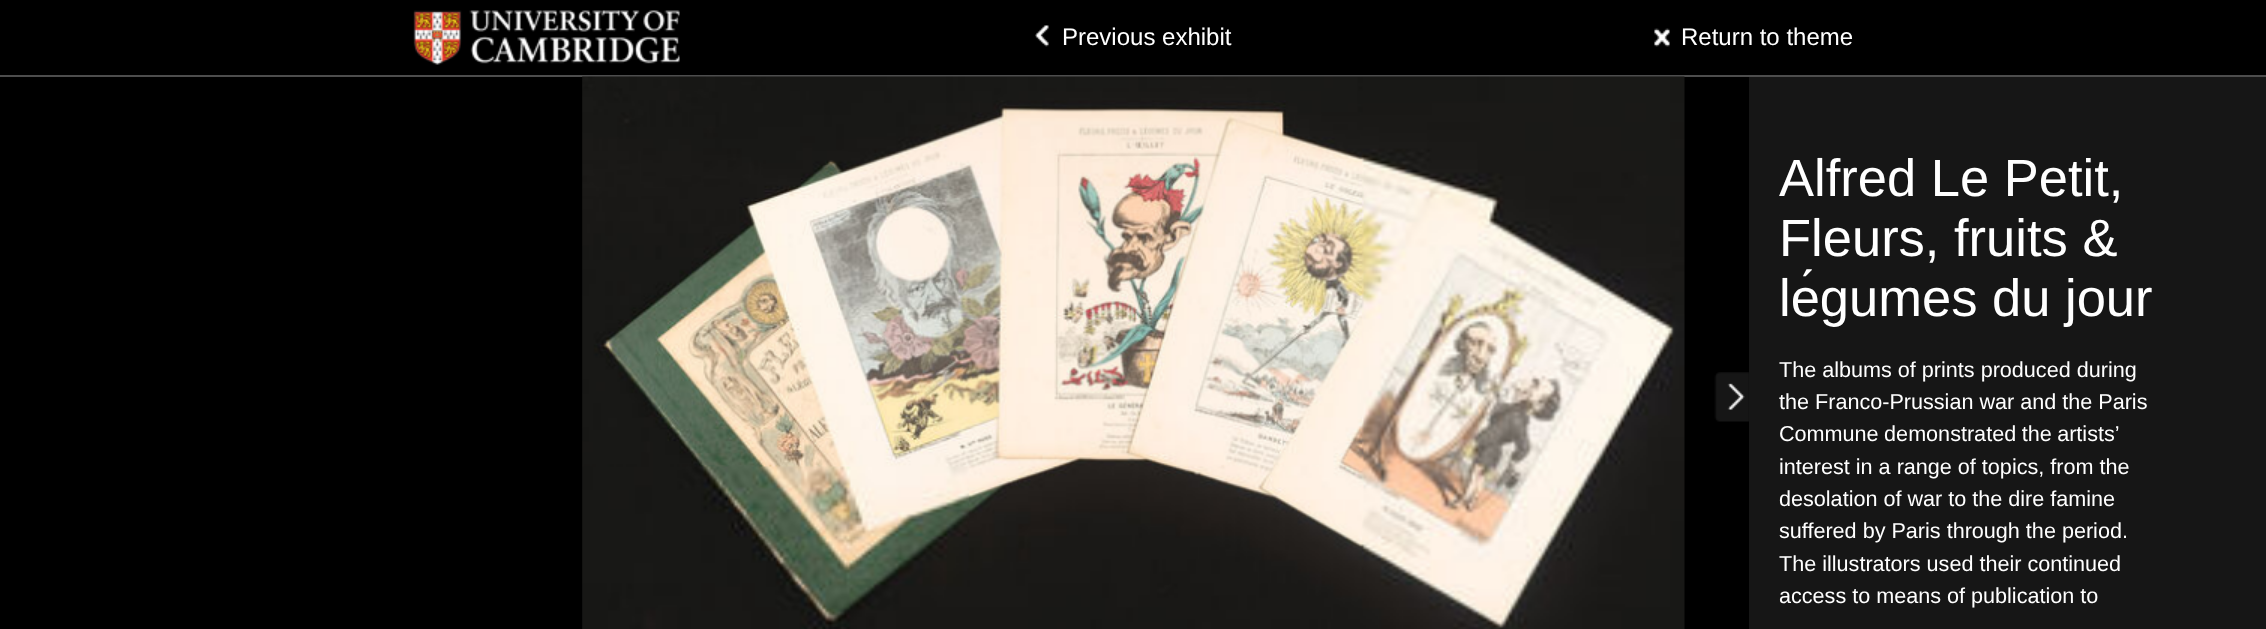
<svg xmlns="http://www.w3.org/2000/svg" width="2266" height="629" viewBox="0 0 2266 629">
  <rect width="100%" height="100%" fill="rgb(0,0,0)"/>
  <rect x="0" y="75" width="2266" height="2" fill="rgb(77,77,77)"/>
  <image x="413" y="10" width="267" height="55" href="pic1.png"/>
  <image x="1035" y="25" width="14" height="22" href="pic2.png"/>
  <text x="1062" y="45" font-family="Liberation Sans" font-size="24" fill="rgb(255,255,255)">Previous exhibit</text>
  <image x="1654" y="28" width="16" height="19" href="pic3.png"/>
  <text x="1681" y="45" font-family="Liberation Sans" font-size="24" fill="rgb(255,255,255)">Return to theme</text>
  <image x="582" y="76" width="1103" height="553" href="pic4.png"/>
  <rect x="1749" y="77" width="517" height="552" fill="rgb(22,22,22)"/>
  <image x="1714" y="372" width="35" height="50" href="pic5.png"/>
  <g font-family="Liberation Sans" font-size="52.5" fill="rgb(255,255,255)">
    <text>
      <tspan x="1779" y="196">Alfred Le Petit,</tspan>
      <tspan x="1779" y="256">Fleurs, fruits &amp;</tspan>
      <tspan x="1779" y="316">légumes du jour</tspan>
    </text>
  </g>
  <g font-family="Liberation Sans" font-size="21.6" fill="rgb(255,255,255)">
    <text>
      <tspan x="1779" y="377">The albums of prints produced during</tspan>
      <tspan x="1779" y="409">the Franco-Prussian war and the Paris</tspan>
      <tspan x="1779" y="441" word-spacing="-0.5">Commune demonstrated the artists’</tspan>
      <tspan x="1779" y="474">interest in a range of topics, from the</tspan>
      <tspan x="1779" y="506">desolation of war to the dire famine</tspan>
      <tspan x="1779" y="538">suffered by Paris through the period.</tspan>
      <tspan x="1779" y="571">The illustrators used their continued</tspan>
      <tspan x="1779" y="603">access to means of publication to</tspan>
    </text>
  </g>
</svg>
